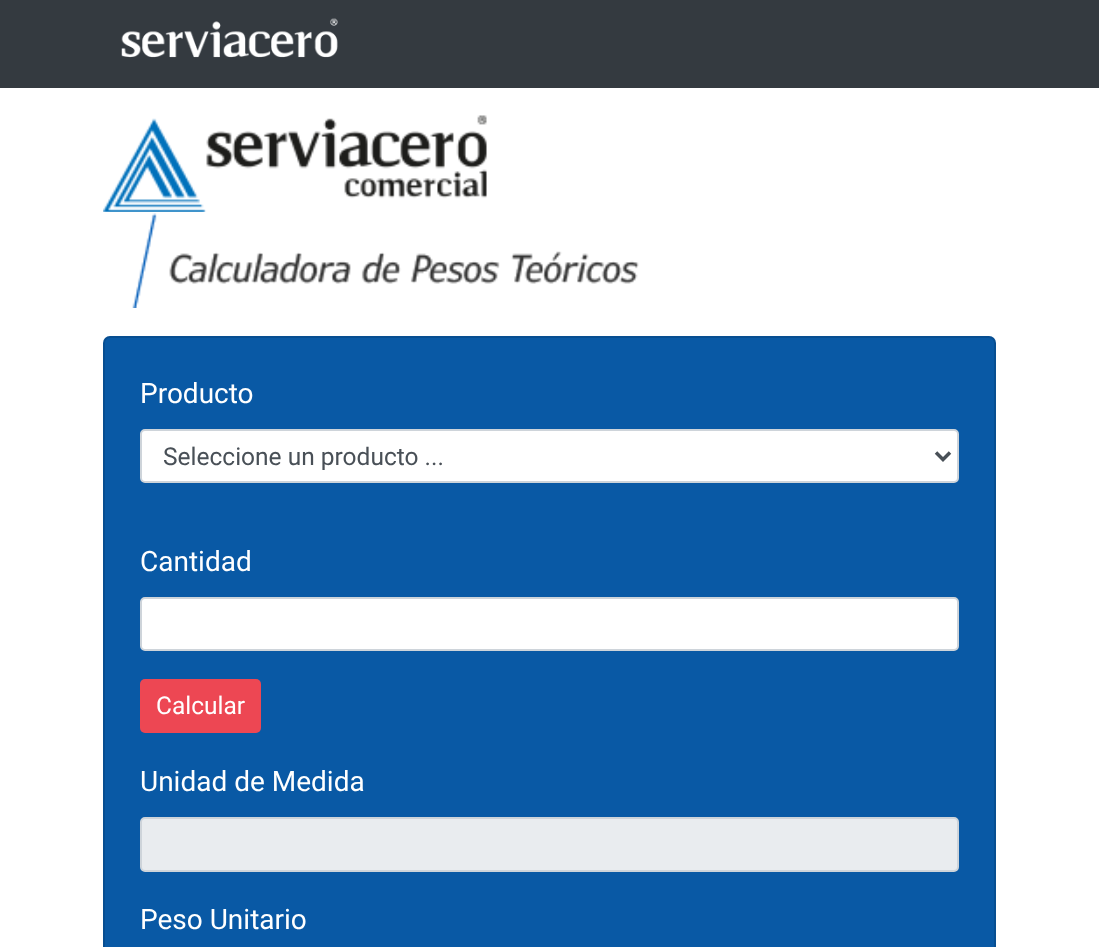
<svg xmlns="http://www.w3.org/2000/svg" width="1099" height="947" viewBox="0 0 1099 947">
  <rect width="100%" height="100%" fill="rgb(255,255,255)"/>
  <rect x="0" y="0" width="1099" height="88" fill="rgb(52,58,64)"/>
  <image x="121" y="18" width="217" height="40" href="pic1.png"/>
  <image x="103" y="115" width="384" height="97" href="pic2.png"/>
  <image x="132" y="213" width="507" height="95" href="pic3.png"/>
  <rect x="103" y="336" width="893" height="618" rx="7" fill="rgb(9,89,165)"/>
  <rect x="104" y="337" width="891" height="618" rx="6" fill="none" stroke="rgba(0,0,0,0.12)" stroke-width="2"/>
  <text x="140" y="403" font-family="Roboto" font-size="28" fill="rgb(255,255,255)">Producto</text>
  <rect x="141" y="430" width="817" height="52" rx="4" fill="rgb(255,255,255)" stroke="rgb(206,212,218)" stroke-width="2"/>
  <path d="M936 452.5L943 459.5L950 452.5" fill="none" stroke="rgb(73,80,87)" stroke-width="3.5"/>
  <text x="163" y="465" font-family="Roboto" font-size="24.5" fill="rgb(73,80,87)">Seleccione un producto ...</text>
  <text x="140" y="571" font-family="Roboto" font-size="28" fill="rgb(255,255,255)">Cantidad</text>
  <rect x="141" y="598" width="817" height="52" rx="4" fill="rgb(255,255,255)" stroke="rgb(206,212,218)" stroke-width="2"/>
  <rect x="140" y="679" width="121" height="54" rx="5" fill="rgb(237,71,83)"/>
  <text x="156" y="714" font-family="Roboto" font-size="24.5" fill="rgb(255,255,255)">Calcular</text>
  <text x="140" y="791" font-family="Roboto" font-size="28" fill="rgb(255,255,255)">Unidad de Medida</text>
  <rect x="141" y="818" width="817" height="53" rx="4" fill="rgb(233,236,239)" stroke="rgb(206,212,218)" stroke-width="2"/>
  <text x="140" y="929" font-family="Roboto" font-size="28" fill="rgb(255,255,255)">Peso Unitario</text>
</svg>
